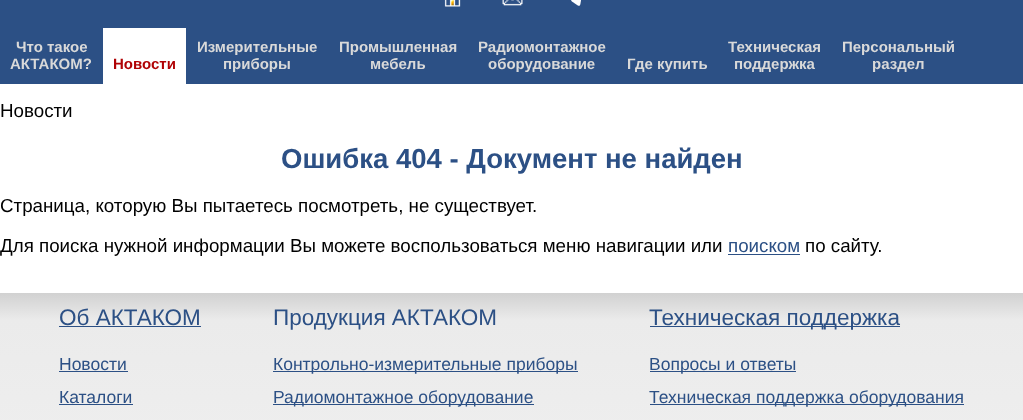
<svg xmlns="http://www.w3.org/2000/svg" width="1023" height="420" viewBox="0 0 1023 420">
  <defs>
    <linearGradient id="g1" gradientUnits="userSpaceOnUse" x1="512" y1="292" x2="512" y2="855"><stop offset="0" stop-color="rgb(208,208,208)"/><stop offset="0.05" stop-color="rgb(235,235,235)"/><stop offset="1" stop-color="rgb(249,249,249)"/></linearGradient>
  </defs>
  <rect width="100%" height="100%" fill="rgb(255,255,255)"/>
  <rect x="0" y="0" width="1023" height="84" fill="rgb(44,80,133)"/>
  <image x="444" y="0" width="17" height="7" href="pic1.png"/>
  <image x="502" y="0" width="21" height="6" href="pic2.png"/>
  <image x="571" y="0" width="10" height="6" href="pic3.png"/>
  <g font-family="Liberation Sans" font-size="15" font-weight="bold" fill="rgb(217,217,217)">
    <text x="16" y="52">Что такое</text>
    <text x="10" y="69">АКТАКОМ?</text>
  </g>
  <rect x="103" y="28" width="83" height="56" fill="rgb(255,255,255)"/>
  <text x="113" y="69" font-family="Liberation Sans" font-size="15" font-weight="bold" fill="rgb(176,3,5)">Новости</text>
  <g font-family="Liberation Sans" font-size="15" font-weight="bold" fill="rgb(217,217,217)">
    <text x="197" y="52">Измерительные</text>
    <text x="223" y="69">приборы</text>
    <text x="339" y="52">Промышленная</text>
    <text x="370" y="69">мебель</text>
    <text x="478" y="52">Радиомонтажное</text>
    <text x="488" y="69">оборудование</text>
    <text x="627" y="69">Где купить</text>
    <text x="728" y="52">Техническая</text>
    <text x="734" y="69">поддержка</text>
    <text x="842" y="52">Персональный</text>
    <text x="872" y="69">раздел</text>
  </g>
  <text x="0" y="117" font-family="Liberation Sans" font-size="18.75" fill="rgb(0,0,0)">Новости</text>
  <text x="281" y="168" font-family="Liberation Sans" font-size="27.5" font-weight="bold" fill="rgb(44,80,133)">Ошибка 404 - Документ не найден</text>
  <g font-family="Liberation Sans" font-size="18.75" fill="rgb(0,0,0)">
    <text x="0" y="212">Страница, которую Вы пытаетесь посмотреть, не существует.</text>
    <text x="0" y="252">Для поиска нужной информации Вы можете воспользоваться меню навигации или</text>
  </g>
  <text x="728" y="252" font-family="Liberation Sans" font-size="18.75" fill="rgb(44,80,133)">поиском</text>
  <rect x="728" y="254" width="72" height="1" fill="rgb(44,80,133)"/>
  <text x="805" y="252" font-family="Liberation Sans" font-size="18.75" fill="rgb(0,0,0)">по сайту.</text>
  <rect x="0" y="293" width="1023" height="127" fill="url(#g1)"/>
  <text x="59" y="325" font-family="Liberation Sans" font-size="22.5" fill="rgb(44,80,133)">Об АКТАКОМ</text>
  <rect x="59" y="326" width="142" height="1" fill="rgb(44,80,133)"/>
  <text x="59" y="370" font-family="Liberation Sans" font-size="17.5" fill="rgb(44,80,133)">Новости</text>
  <rect x="59" y="371" width="69" height="1" fill="rgb(44,80,133)"/>
  <text x="59" y="403" font-family="Liberation Sans" font-size="17.5" fill="rgb(44,80,133)">Каталоги</text>
  <rect x="59" y="404" width="74" height="1" fill="rgb(44,80,133)"/>
  <text x="273" y="325" font-family="Liberation Sans" font-size="22.5" fill="rgb(44,80,133)">Продукция АКТАКОМ</text>
  <rect x="273" y="371" width="305" height="1" fill="rgb(44,80,133)"/>
  <text x="273" y="370" font-family="Liberation Sans" font-size="17.5" fill="rgb(44,80,133)">Контрольно-измерительные приборы</text>
  <rect x="273" y="404" width="261" height="1" fill="rgb(44,80,133)"/>
  <text x="273" y="403" font-family="Liberation Sans" font-size="17.5" fill="rgb(44,80,133)">Радиомонтажное оборудование</text>
  <rect x="650" y="326" width="250" height="1" fill="rgb(44,80,133)"/>
  <text x="649" y="325" font-family="Liberation Sans" font-size="22.5" fill="rgb(44,80,133)">Техническая поддержка</text>
  <rect x="650" y="371" width="146" height="1" fill="rgb(44,80,133)"/>
  <text x="649" y="370" font-family="Liberation Sans" font-size="17.5" fill="rgb(44,80,133)">Вопросы и ответы</text>
  <rect x="650" y="404" width="314" height="1" fill="rgb(44,80,133)"/>
  <text x="649" y="403" font-family="Liberation Sans" font-size="17.5" fill="rgb(44,80,133)">Техническая поддержка оборудования</text>
</svg>
